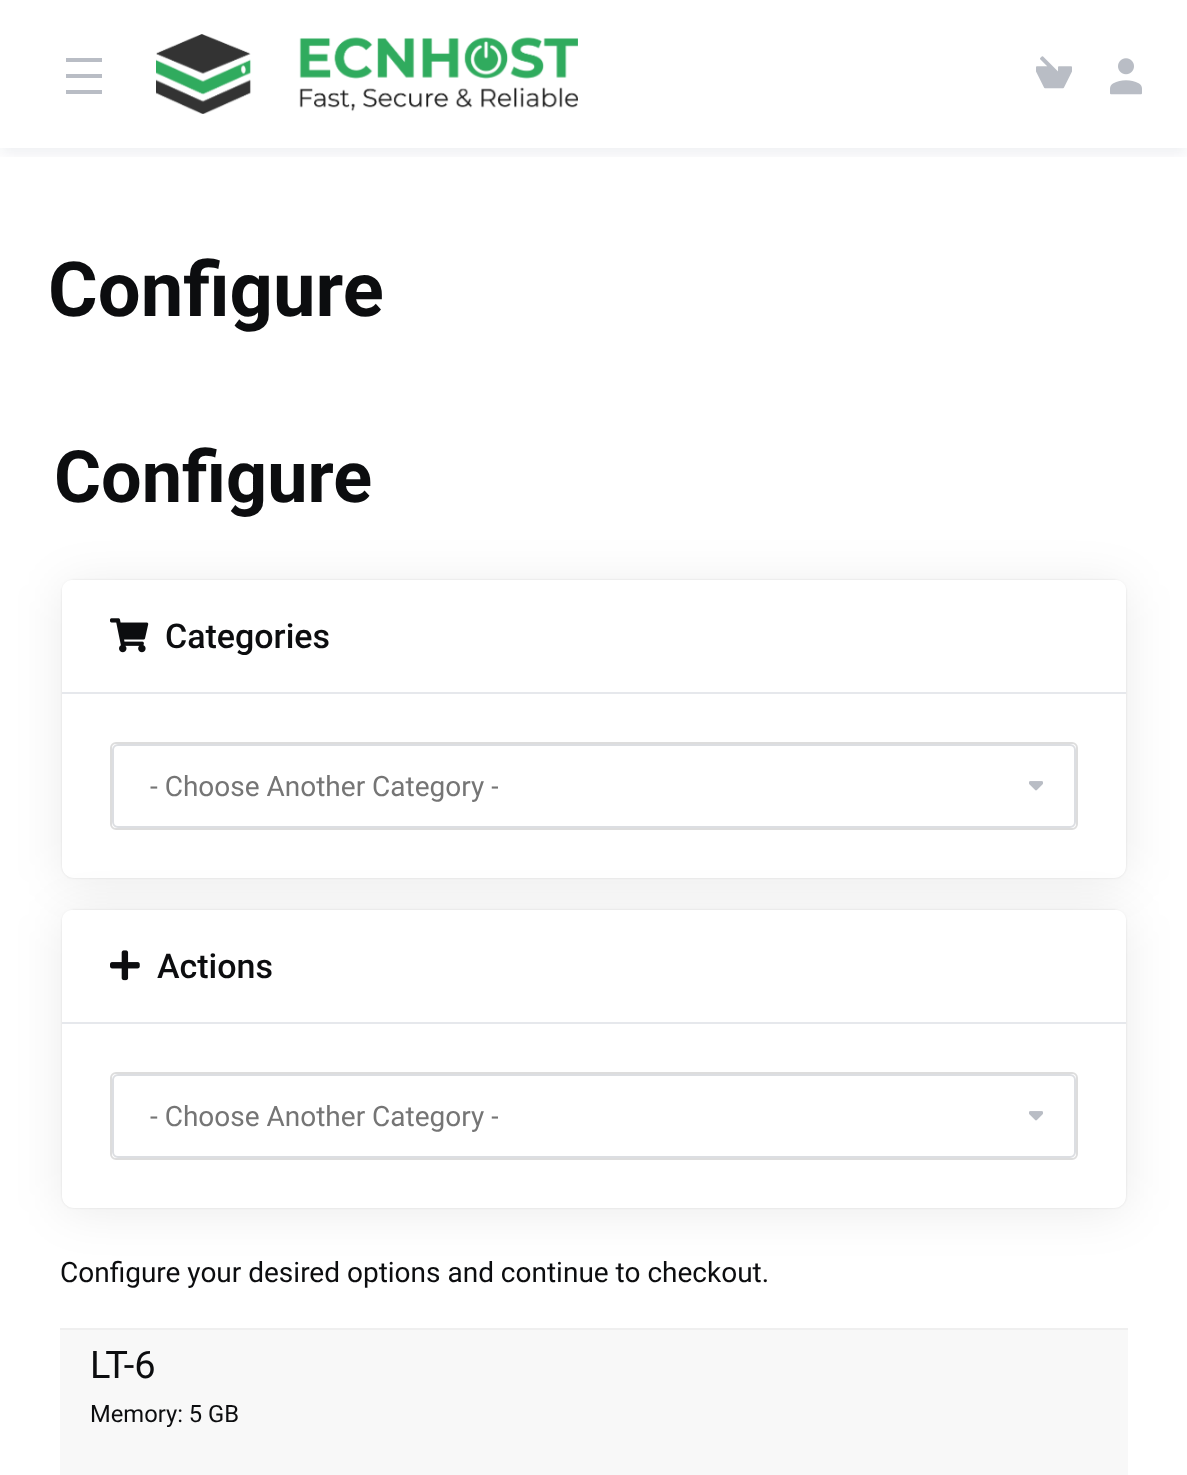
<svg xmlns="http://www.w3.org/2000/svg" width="1187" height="1475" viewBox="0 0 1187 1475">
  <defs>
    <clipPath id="clip1"><rect x="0" y="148" width="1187" height="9"/></clipPath>
    <clipPath id="clip2"><rect x="150" y="770" width="348" height="32"/></clipPath>
    <clipPath id="clip3"><rect x="150" y="1100" width="348" height="32"/></clipPath>
  </defs>
  <rect width="100%" height="100%" fill="rgb(255,255,255)"/>
  <g clip-path="url(#clip1)">
    <rect x="0" y="4" width="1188" height="148" fill="rgba(0,14,69,0.08)" filter="blur(8px)"/>
  </g>
  <rect x="66" y="58" width="36" height="4" fill="rgb(185,189,197)"/>
  <rect x="66" y="74" width="36" height="4" fill="rgb(185,189,197)"/>
  <rect x="66" y="90" width="36" height="4" fill="rgb(185,189,197)"/>
  <image x="156" y="34" width="422" height="80" href="pic1.png"/>
  <image x="1036" y="56" width="36" height="33" href="pic2.png"/>
  <image x="1110" y="58" width="32" height="37" href="pic3.png"/>
  <text x="48" y="316" font-family="Roboto" font-size="76" font-weight="bold" fill="rgb(12,13,15)">Configure</text>
  <text x="54" y="502" font-family="Roboto" font-size="72" font-weight="bold" fill="rgb(12,13,15)">Configure</text>
  <rect x="62" y="584" width="1064" height="298" rx="12" fill="rgba(0,0,0,0.08)" filter="blur(24px)"/>
  <rect x="62" y="580" width="1064" height="298" rx="12" fill="rgba(0,0,0,0.1)" filter="blur(1px)"/>
  <rect x="62" y="580" width="1064" height="298" rx="12" fill="rgb(255,255,255)"/>
  <path d="M72 580H1116C1121.5 580 1126 584.5 1126 590V694H62V590C62 584.5 66.5 580 72 580Z" fill="rgb(255,255,255)"/>
  <rect x="62" y="692" width="1064" height="2" fill="rgb(230,232,236)"/>
  <image x="110" y="618" width="39" height="35" href="pic4.png"/>
  <text x="165" y="648" font-family="Roboto" font-size="34" font-weight="500" fill="rgb(12,13,15)">Categories</text>
  <rect x="111" y="743" width="966" height="86" rx="5" fill="none" stroke="rgb(221,221,221)" stroke-width="2"/>
  <rect x="113" y="745" width="962" height="82" rx="5" fill="none" stroke="rgb(220,222,226)" stroke-width="2"/>
  <g clip-path="url(#clip2)">
    <text x="150" y="796" font-family="Roboto" font-size="28" fill="rgb(117,117,117)">- Choose Another Category -</text>
  </g>
  <image x="1029" y="781" width="14" height="10" href="pic5.png"/>
  <rect x="62" y="914" width="1064" height="298" rx="12" fill="rgba(0,0,0,0.08)" filter="blur(24px)"/>
  <rect x="62" y="910" width="1064" height="298" rx="12" fill="rgba(0,0,0,0.1)" filter="blur(1px)"/>
  <rect x="62" y="910" width="1064" height="298" rx="12" fill="rgb(255,255,255)"/>
  <path d="M72 910H1116C1121.5 910 1126 914.5 1126 920V1024H62V920C62 914.5 66.5 910 72 910Z" fill="rgb(255,255,255)"/>
  <rect x="62" y="1022" width="1064" height="2" fill="rgb(230,232,236)"/>
  <image x="110" y="950" width="30" height="31" href="pic6.png"/>
  <text x="157" y="978" font-family="Roboto" font-size="34" font-weight="500" fill="rgb(12,13,15)">Actions</text>
  <rect x="111" y="1073" width="966" height="86" rx="5" fill="none" stroke="rgb(221,221,221)" stroke-width="2"/>
  <rect x="113" y="1075" width="962" height="82" rx="5" fill="none" stroke="rgb(220,222,226)" stroke-width="2"/>
  <g clip-path="url(#clip3)">
    <text x="150" y="1126" font-family="Roboto" font-size="28" fill="rgb(117,117,117)">- Choose Another Category -</text>
  </g>
  <image x="1029" y="1111" width="14" height="10" href="pic5.png"/>
  <text x="60" y="1282" font-family="Roboto" font-size="28" fill="rgb(12,13,15)">Configure your desired options and continue to checkout.</text>
  <rect x="60" y="1330" width="1068" height="145" fill="rgb(248,248,248)"/>
  <rect x="60" y="1328" width="1068" height="2" fill="rgb(239,239,239)"/>
  <text x="90" y="1378" font-family="Roboto" font-size="38" fill="rgb(12,13,15)">LT-6</text>
  <text x="90" y="1422" font-family="Roboto" font-size="23.75" fill="rgb(12,13,15)">Memory: 5 GB</text>
</svg>
